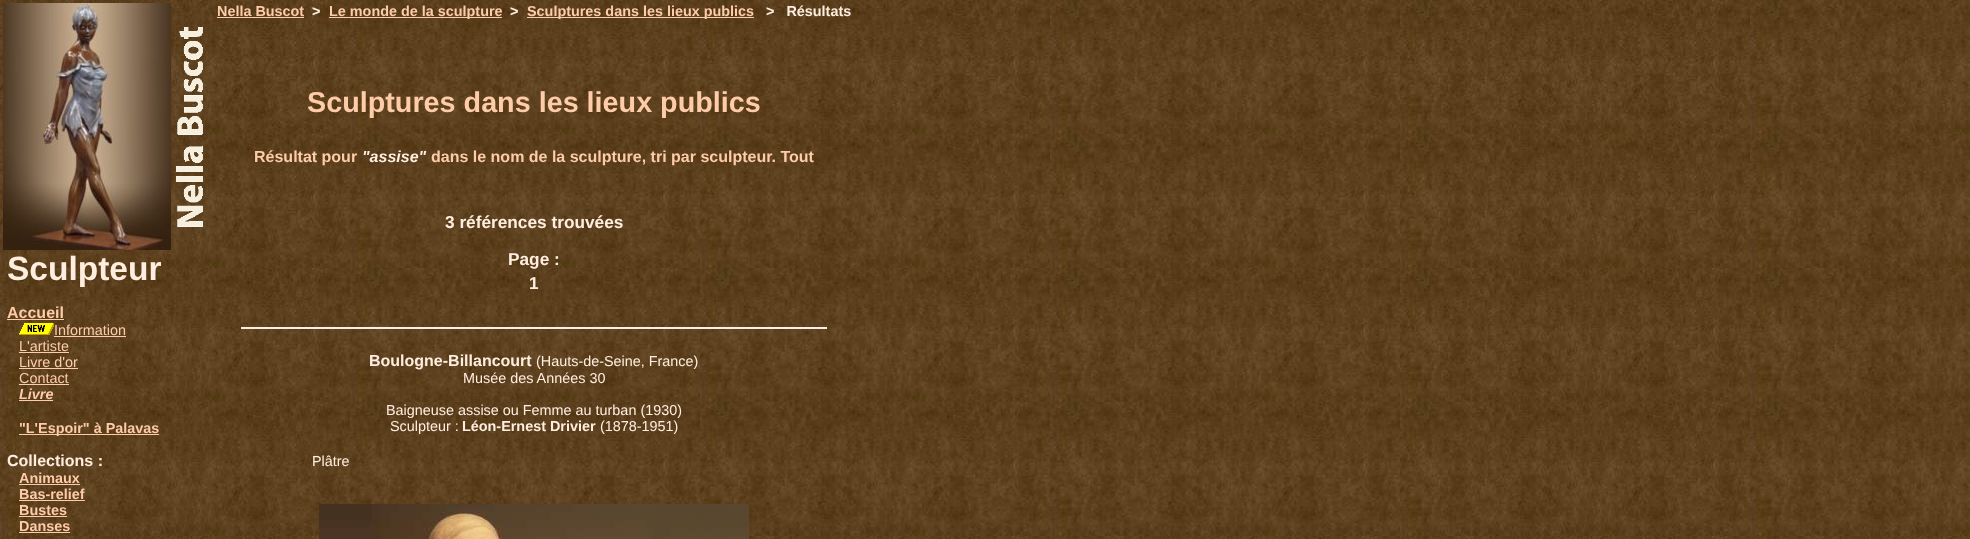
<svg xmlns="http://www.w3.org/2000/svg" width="1970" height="539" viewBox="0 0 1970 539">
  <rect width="100%" height="100%" fill="rgb(255,255,255)"/>
  <image x="0" y="0" width="1970" height="539" href="pic1.png"/>
  <image x="3" y="3" width="168" height="247" href="pic2.png"/>
  <image x="176" y="27" width="27" height="200" href="pic3.png"/>
  <text x="7" y="280" font-family="Liberation Sans" font-size="33.5" font-weight="bold" fill="rgb(255,238,223)">Sculpteur</text>
  <text x="7" y="318" font-family="Liberation Sans" font-size="16" font-weight="bold" fill="rgb(255,204,170)">Accueil</text>
  <rect x="7" y="319" width="57" height="1" fill="rgb(255,204,170)"/>
  <image x="19" y="323" width="35" height="12" href="pic4.png"/>
  <text x="54" y="335" font-family="Liberation Sans" font-size="14.4" fill="rgb(255,204,170)">Information</text>
  <rect x="54" y="336" width="72" height="1" fill="rgb(255,204,170)"/>
  <text x="19" y="351" font-family="Liberation Sans" font-size="14.4" fill="rgb(255,204,170)">L'artiste</text>
  <rect x="19" y="352" width="50" height="1" fill="rgb(255,204,170)"/>
  <text x="19" y="367" font-family="Liberation Sans" font-size="14.4" fill="rgb(255,204,170)">Livre d'or</text>
  <rect x="19" y="368" width="59" height="1" fill="rgb(255,204,170)"/>
  <text x="19" y="383" font-family="Liberation Sans" font-size="14.4" fill="rgb(255,204,170)">Contact</text>
  <rect x="19" y="384" width="50" height="1" fill="rgb(255,204,170)"/>
  <text x="19" y="399" font-family="Liberation Sans" font-size="14.4" font-weight="bold" font-style="italic" fill="rgb(255,204,170)">Livre</text>
  <rect x="19" y="400" width="34" height="1" fill="rgb(255,204,170)"/>
  <rect x="19" y="434" width="140" height="1" fill="rgb(255,204,170)"/>
  <text x="19" y="433" font-family="Liberation Sans" font-size="14.4" font-weight="bold" fill="rgb(255,204,170)">"L'Espoir" à Palavas</text>
  <text x="7" y="466" font-family="Liberation Sans" font-size="16" font-weight="bold" fill="rgb(255,238,223)">Collections :</text>
  <text x="19" y="483" font-family="Liberation Sans" font-size="14.4" font-weight="bold" fill="rgb(255,204,170)">Animaux</text>
  <rect x="19" y="484" width="61" height="1" fill="rgb(255,204,170)"/>
  <text x="19" y="499" font-family="Liberation Sans" font-size="14.4" font-weight="bold" fill="rgb(255,204,170)">Bas-relief</text>
  <rect x="19" y="500" width="66" height="1" fill="rgb(255,204,170)"/>
  <text x="19" y="515" font-family="Liberation Sans" font-size="14.4" font-weight="bold" fill="rgb(255,204,170)">Bustes</text>
  <rect x="19" y="516" width="48" height="1" fill="rgb(255,204,170)"/>
  <text x="19" y="531" font-family="Liberation Sans" font-size="14.4" font-weight="bold" fill="rgb(255,204,170)">Danses</text>
  <rect x="19" y="532" width="51" height="1" fill="rgb(255,204,170)"/>
  <text x="217" y="16" font-family="Liberation Sans" font-size="14.4" font-weight="bold" fill="rgb(255,204,170)">Nella Buscot</text>
  <rect x="217" y="17" width="87" height="1" fill="rgb(255,204,170)"/>
  <text x="312" y="16" font-family="Liberation Sans" font-size="14.4" font-weight="bold" fill="rgb(255,238,223)">&gt;</text>
  <rect x="329" y="17" width="173" height="1" fill="rgb(255,204,170)"/>
  <text x="329" y="16" font-family="Liberation Sans" font-size="14.4" font-weight="bold" fill="rgb(255,204,170)">Le monde de la sculpture</text>
  <text x="510" y="16" font-family="Liberation Sans" font-size="14.4" font-weight="bold" fill="rgb(255,238,223)">&gt;</text>
  <rect x="527" y="17" width="227" height="1" fill="rgb(255,204,170)"/>
  <text x="527" y="16" font-family="Liberation Sans" font-size="14.4" font-weight="bold" fill="rgb(255,204,170)">Sculptures dans les lieux publics</text>
  <text x="766" y="16" font-family="Liberation Sans" font-size="14.4" font-weight="bold" fill="rgb(255,238,223)" xml:space="preserve">&gt;   Résultats</text>
  <text x="307" y="112" font-family="Liberation Sans" font-size="28.75" font-weight="bold" fill="rgb(255,204,170)">Sculptures dans les lieux publics</text>
  <text x="254" y="162" font-family="Liberation Sans" font-size="16" font-weight="bold" fill="rgb(255,204,170)">Résultat pour</text>
  <text x="362" y="162" font-family="Liberation Sans" font-size="16" font-weight="bold" font-style="italic" fill="rgb(255,238,223)">"assise"</text>
  <text x="431" y="162" font-family="Liberation Sans" font-size="16" font-weight="bold" fill="rgb(255,204,170)">dans le nom de la sculpture, tri par sculpteur. Tout</text>
  <g font-family="Liberation Sans" font-size="17.25" font-weight="bold" fill="rgb(255,238,223)">
    <text x="445" y="228">3 références trouvées</text>
    <text x="508" y="265">Page :</text>
    <text x="529" y="289">1</text>
  </g>
  <rect x="241" y="327" width="586" height="2" fill="rgb(255,238,223)"/>
  <text x="369" y="366" font-family="Liberation Sans" font-size="16" font-weight="bold" fill="rgb(255,238,223)">Boulogne-Billancourt</text>
  <g font-family="Liberation Sans" font-size="14.4" fill="rgb(255,238,223)">
    <text x="536" y="366">(Hauts-de-Seine, France)</text>
    <text x="463" y="383">Musée des Années 30</text>
    <text x="386" y="415">Baigneuse assise ou Femme au turban (1930)</text>
    <text x="390" y="431">Sculpteur :</text>
  </g>
  <text x="462" y="431" font-family="Liberation Sans" font-size="14.4" font-weight="bold" fill="rgb(255,238,223)">Léon-Ernest Drivier</text>
  <g font-family="Liberation Sans" font-size="14.4" fill="rgb(255,238,223)">
    <text x="600" y="431">(1878-1951)</text>
    <text x="312" y="466">Plâtre</text>
  </g>
  <image x="319" y="504" width="430" height="35" href="pic5.png"/>
</svg>
